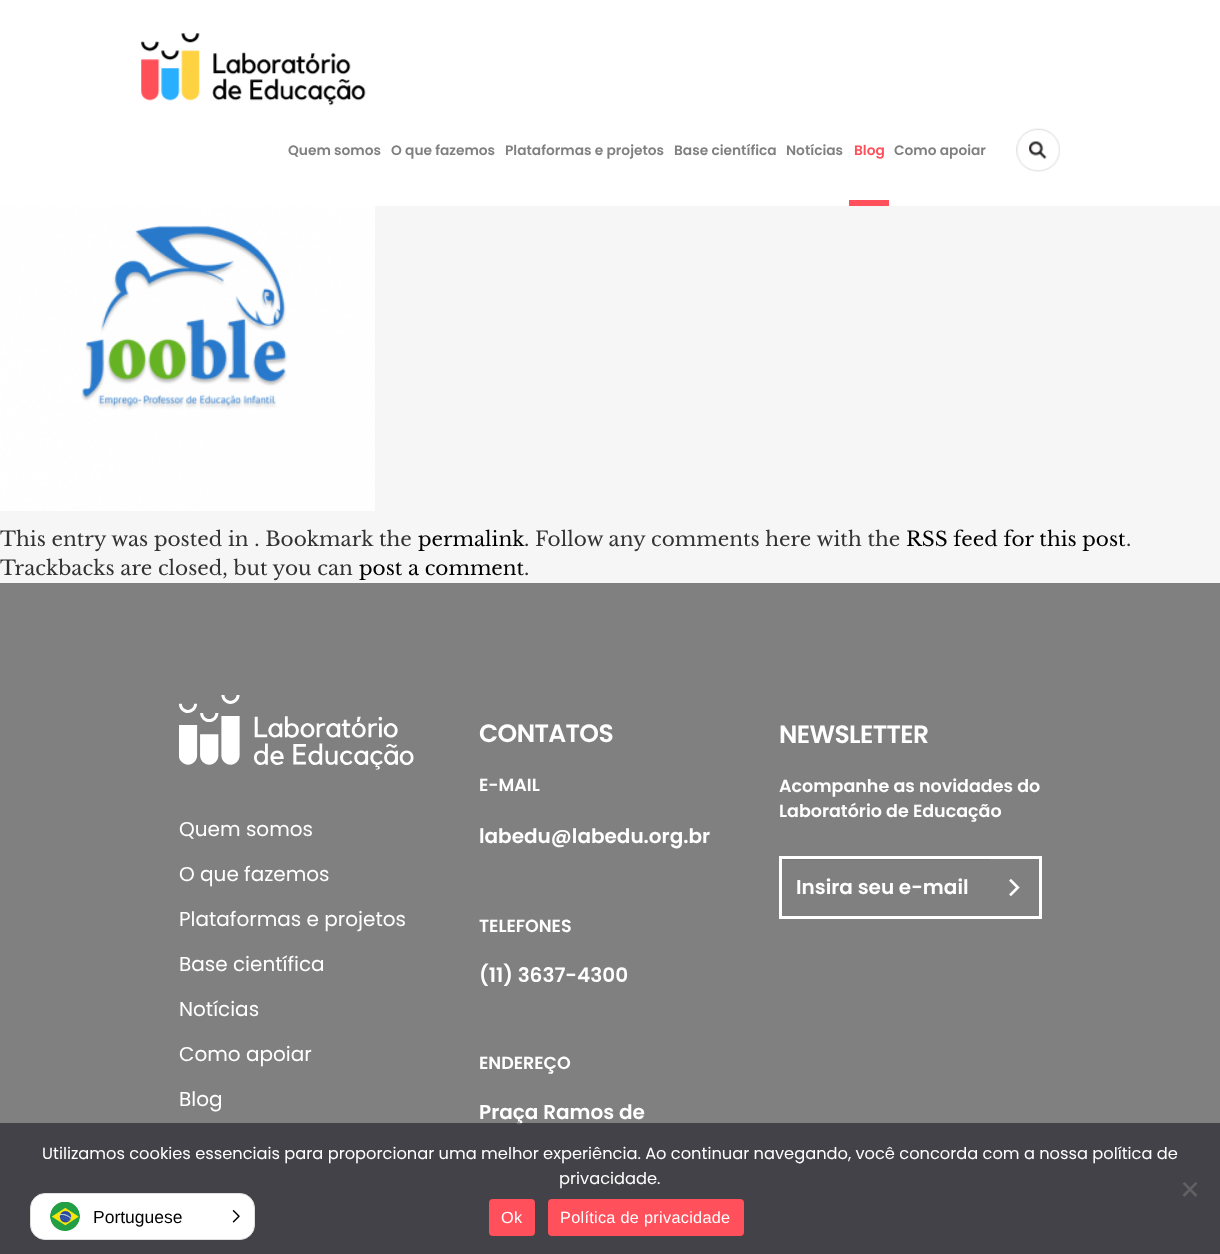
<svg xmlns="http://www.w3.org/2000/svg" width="1220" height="1254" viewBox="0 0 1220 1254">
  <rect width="100%" height="100%" fill="rgb(246,246,246)"/>
  <rect x="0" y="0" width="1220" height="206" fill="rgb(255,255,255)"/>
  <image x="141" y="33" width="225" height="73" href="pic1.png"/>
  <g font-family="Poppins" font-size="13.75" font-weight="600" fill="rgb(128,128,128)">
    <text x="288" y="155">Quem somos</text>
    <text x="391" y="155">O que fazemos</text>
    <text x="505" y="155">Plataformas e projetos</text>
    <text x="674" y="155">Base científica</text>
    <text x="786" y="155">Notícias</text>
  </g>
  <rect x="849" y="200" width="40" height="6" fill="rgb(255,80,91)"/>
  <text x="854" y="155" font-family="Poppins" font-size="13.75" font-weight="600" fill="rgb(255,80,91)">Blog</text>
  <text x="894" y="155" font-family="Poppins" font-size="13.75" font-weight="600" fill="rgb(128,128,128)">Como apoiar</text>
  <image x="1016" y="128" width="44" height="44" href="pic2.png"/>
  <image x="0" y="206" width="375" height="305" href="pic3.png"/>
  <text x="0" y="546" font-family="Libre Baskerville" font-size="20" fill="rgb(51,51,51)">This entry was posted in . Bookmark the</text>
  <text x="418" y="546" font-family="Libre Baskerville" font-size="20" fill="rgb(0,0,0)">permalink</text>
  <text x="524" y="546" font-family="Libre Baskerville" font-size="20" fill="rgb(51,51,51)">. Follow any comments here with the</text>
  <text x="906" y="546" font-family="Libre Baskerville" font-size="20" fill="rgb(0,0,0)">RSS feed for this post</text>
  <g font-family="Libre Baskerville" font-size="20" fill="rgb(51,51,51)">
    <text x="1126" y="546">.</text>
    <text x="0" y="575">Trackbacks are closed, but you can</text>
  </g>
  <text x="359" y="575" font-family="Libre Baskerville" font-size="20" fill="rgb(0,0,0)">post a comment</text>
  <text x="524" y="575" font-family="Libre Baskerville" font-size="20" fill="rgb(51,51,51)">.</text>
  <rect x="0" y="583" width="1220" height="671" fill="rgb(128,128,128)"/>
  <image x="179" y="695" width="235" height="75" href="pic4.png"/>
  <g font-family="Poppins" font-size="20" fill="rgb(255,255,255)">
    <text x="179" y="836">Quem somos</text>
    <text x="179" y="881">O que fazemos</text>
    <text x="179" y="926">Plataformas e projetos</text>
    <text x="179" y="971">Base científica</text>
    <text x="179" y="1016">Notícias</text>
    <text x="179" y="1061">Como apoiar</text>
    <text x="179" y="1106">Blog</text>
  </g>
  <text x="479" y="742" font-family="Poppins" font-size="25" font-weight="600" letter-spacing="-0.6" fill="rgb(255,255,255)">CONTATOS</text>
  <text x="479" y="791" font-family="Poppins" font-size="17.5" font-weight="600" fill="rgb(255,255,255)">E-MAIL</text>
  <text x="479" y="843" font-family="Poppins" font-size="20" font-weight="600" fill="rgb(255,255,255)">labedu@labedu.org.br</text>
  <text x="479" y="932" font-family="Poppins" font-size="17.5" font-weight="600" fill="rgb(255,255,255)">TELEFONES</text>
  <text x="479" y="982" font-family="Poppins" font-size="20" font-weight="600" fill="rgb(255,255,255)">(11) 3637-4300</text>
  <text x="479" y="1069" font-family="Poppins" font-size="17.5" font-weight="600" fill="rgb(255,255,255)">ENDEREÇO</text>
  <text x="479" y="1119" font-family="Poppins" font-size="20" font-weight="600" fill="rgb(255,255,255)">Praça Ramos de</text>
  <text x="779" y="743" font-family="Poppins" font-size="25" font-weight="600" letter-spacing="-0.6" fill="rgb(255,255,255)">NEWSLETTER</text>
  <g font-family="Poppins" font-size="17.5" font-weight="600" fill="rgb(255,255,255)">
    <text>
      <tspan x="779" y="792">Acompanhe as novidades do</tspan>
      <tspan x="779" y="817">Laboratório de Educação</tspan>
    </text>
  </g>
  <rect x="781" y="859" width="209" height="1" fill="rgb(118,118,118)"/>
  <rect x="779" y="856" width="262" height="3" fill="rgb(255,255,255)"/>
  <rect x="779" y="916" width="211" height="3" fill="rgb(255,255,255)"/>
  <rect x="779" y="856" width="3" height="63" fill="rgb(255,255,255)"/>
  <text x="796" y="894" font-family="Poppins" font-size="20" font-weight="600" fill="rgb(255,255,255)">Insira seu e-mail</text>
  <image x="1009" y="879" width="11" height="17" href="pic5.png"/>
  <rect x="1039" y="856" width="3" height="63" fill="rgb(255,255,255)"/>
  <rect x="989" y="916" width="52" height="3" fill="rgb(255,255,255)"/>
  <rect x="0" y="1123" width="1220" height="131" fill="rgba(50,50,58,0.8)"/>
  <g font-family="Poppins" font-size="16.25" fill="rgb(255,255,255)">
    <text x="42" y="1159">Utilizamos cookies essenciais para proporcionar uma melhor experiência. Ao continuar navegando, você concorda com a nossa política de</text>
    <text x="559" y="1184">privacidade.</text>
  </g>
  <path d="M1195.5 1182L1197.5 1183.5L1184.5 1197L1182.5 1195Z" fill="rgb(97,97,100)"/>
  <path d="M1182.5 1183.5L1184.5 1182L1197.5 1195L1195.5 1197Z" fill="rgb(97,97,100)"/>
  <rect x="489" y="1199" width="46" height="37" rx="4" fill="rgb(255,80,91)"/>
  <text x="501" y="1223" font-family="Liberation Sans" font-size="16.25" letter-spacing="0.3" fill="rgb(255,255,255)">Ok</text>
  <rect x="548" y="1199" width="196" height="37" rx="4" fill="rgb(255,80,91)"/>
  <text x="560" y="1223" font-family="Liberation Sans" font-size="16.25" letter-spacing="0.3" fill="rgb(255,255,255)">Política de privacidade</text>
  <rect x="30.5" y="1193.5" width="224" height="46" rx="14.5" fill="rgb(255,255,255)" stroke="rgb(224,224,224)"/>
  <image x="50" y="1202" width="30" height="29" href="pic6.png"/>
  <text x="93" y="1223" font-family="Liberation Sans" font-size="17.5" fill="rgb(0,0,0)">Portuguese</text>
  <image x="232" y="1210" width="8" height="13" href="pic7.png"/>
</svg>
